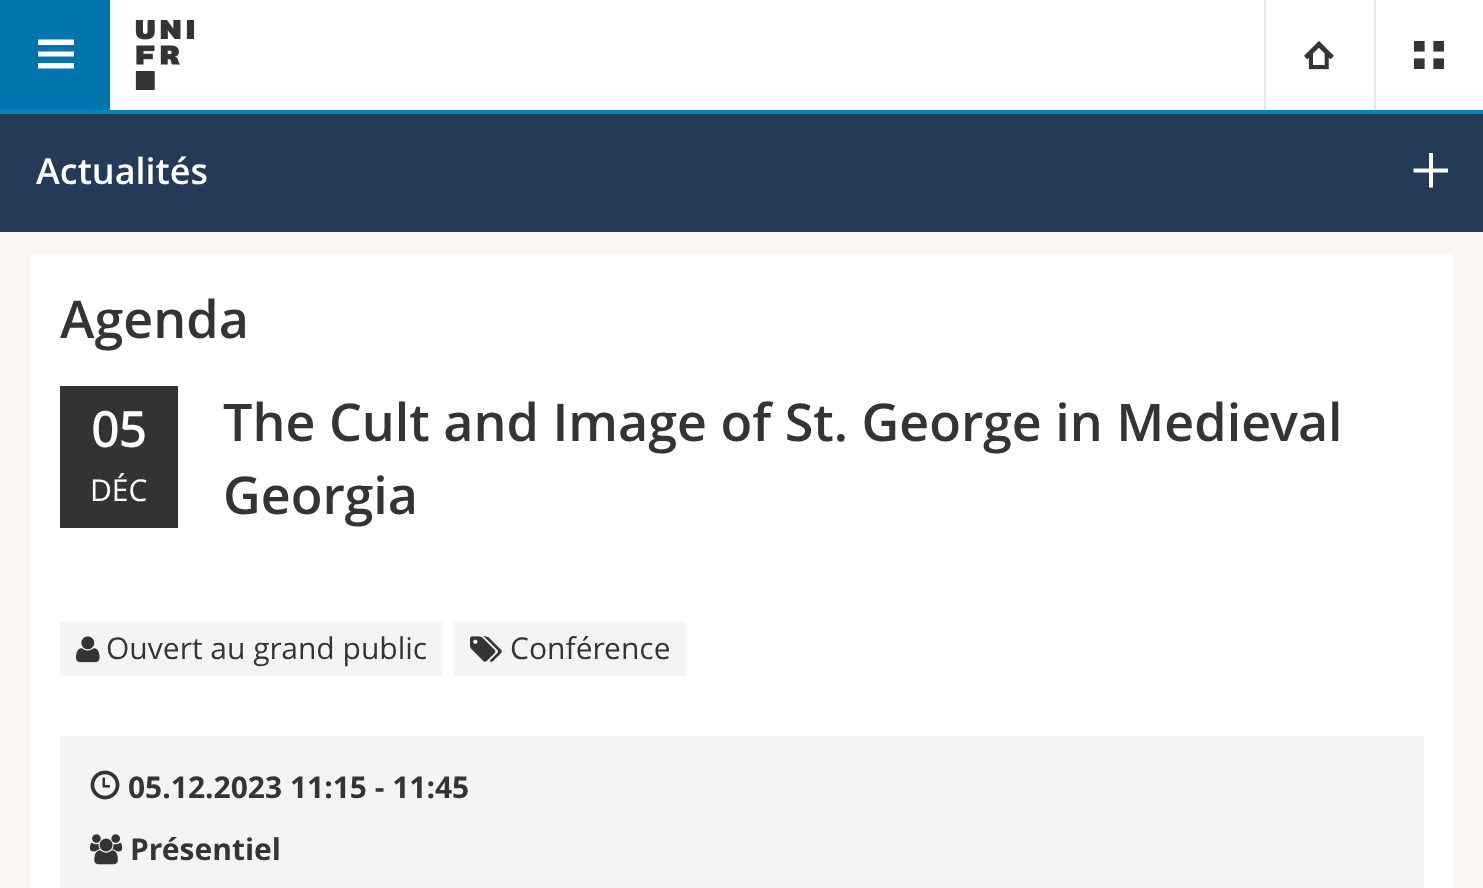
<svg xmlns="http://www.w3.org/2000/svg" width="1483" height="888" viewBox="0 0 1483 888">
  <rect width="100%" height="100%" fill="rgb(250,247,242)"/>
  <rect x="110" y="0" width="1373" height="110" fill="rgb(255,255,255)"/>
  <rect x="0" y="0" width="110" height="110" fill="rgb(0,116,173)"/>
  <path d="M74 63H38V68.5H74ZM74 51.5H38V56.5H74ZM74 39.5H38V45H74Z" fill="rgb(255,255,255)"/>
  <image x="135" y="20" width="60" height="70" href="pic1.png"/>
  <rect x="1264" y="0" width="2" height="110" fill="rgb(232,232,232)"/>
  <image x="1304" y="41" width="30" height="29" href="pic2.png"/>
  <rect x="1374" y="0" width="2" height="110" fill="rgb(232,232,232)"/>
  <image x="1414" y="40" width="30" height="29" href="pic3.png"/>
  <rect x="0" y="110" width="1483" height="4" fill="rgb(0,133,198)"/>
  <rect x="30" y="254" width="1424" height="634" fill="rgb(255,255,255)"/>
  <rect x="0" y="114" width="1483" height="118" fill="rgb(36,58,89)"/>
  <text x="36" y="184" font-family="Open Sans" font-size="36" font-weight="600" fill="rgb(255,255,255)">Actualités</text>
  <path d="M1448 172.5V168.5H1433V153H1429V168.5H1413.5V172.5H1429V187.5H1433V172.5Z" fill="rgb(255,255,255)"/>
  <text x="60" y="338" font-family="Open Sans" font-size="52" font-weight="600" fill="rgb(52,52,52)">Agenda</text>
  <rect x="60" y="386" width="118" height="142" fill="rgb(51,51,51)"/>
  <text x="91" y="447" font-family="Open Sans" font-size="48" font-weight="bold" fill="rgb(255,255,255)">05</text>
  <text x="90" y="501" font-family="Open Sans" font-size="30" fill="rgb(255,255,255)">DÉC</text>
  <g font-family="Open Sans" font-size="52" font-weight="600" fill="rgb(52,52,52)">
    <text>
      <tspan x="223" y="441">The Cult and Image of St. George in Medieval</tspan>
      <tspan x="223" y="514">Georgia</tspan>
    </text>
  </g>
  <rect x="60" y="622" width="382" height="54" fill="rgb(244,244,244)"/>
  <image x="76" y="636" width="24" height="27" href="pic4.png"/>
  <text x="106" y="659" font-family="Open Sans" font-size="30" fill="rgb(52,52,52)">Ouvert au grand public</text>
  <rect x="454" y="622" width="232" height="54" fill="rgb(244,244,244)"/>
  <image x="470" y="636" width="32" height="26" href="pic5.png"/>
  <text x="510" y="659" font-family="Open Sans" font-size="30" fill="rgb(52,52,52)">Conférence</text>
  <rect x="60" y="736" width="1364" height="152" fill="rgb(244,244,244)"/>
  <image x="90" y="770" width="30" height="30" href="pic6.png"/>
  <text x="128" y="798" font-family="'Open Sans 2'" font-size="30" font-weight="bold" fill="rgb(52,52,52)">05.12.2023 11:15 - 11:45</text>
  <image x="90" y="834" width="33" height="31" href="pic7.png"/>
  <text x="130" y="860" font-family="'Open Sans 2'" font-size="30" font-weight="bold" fill="rgb(52,52,52)">Présentiel</text>
</svg>
